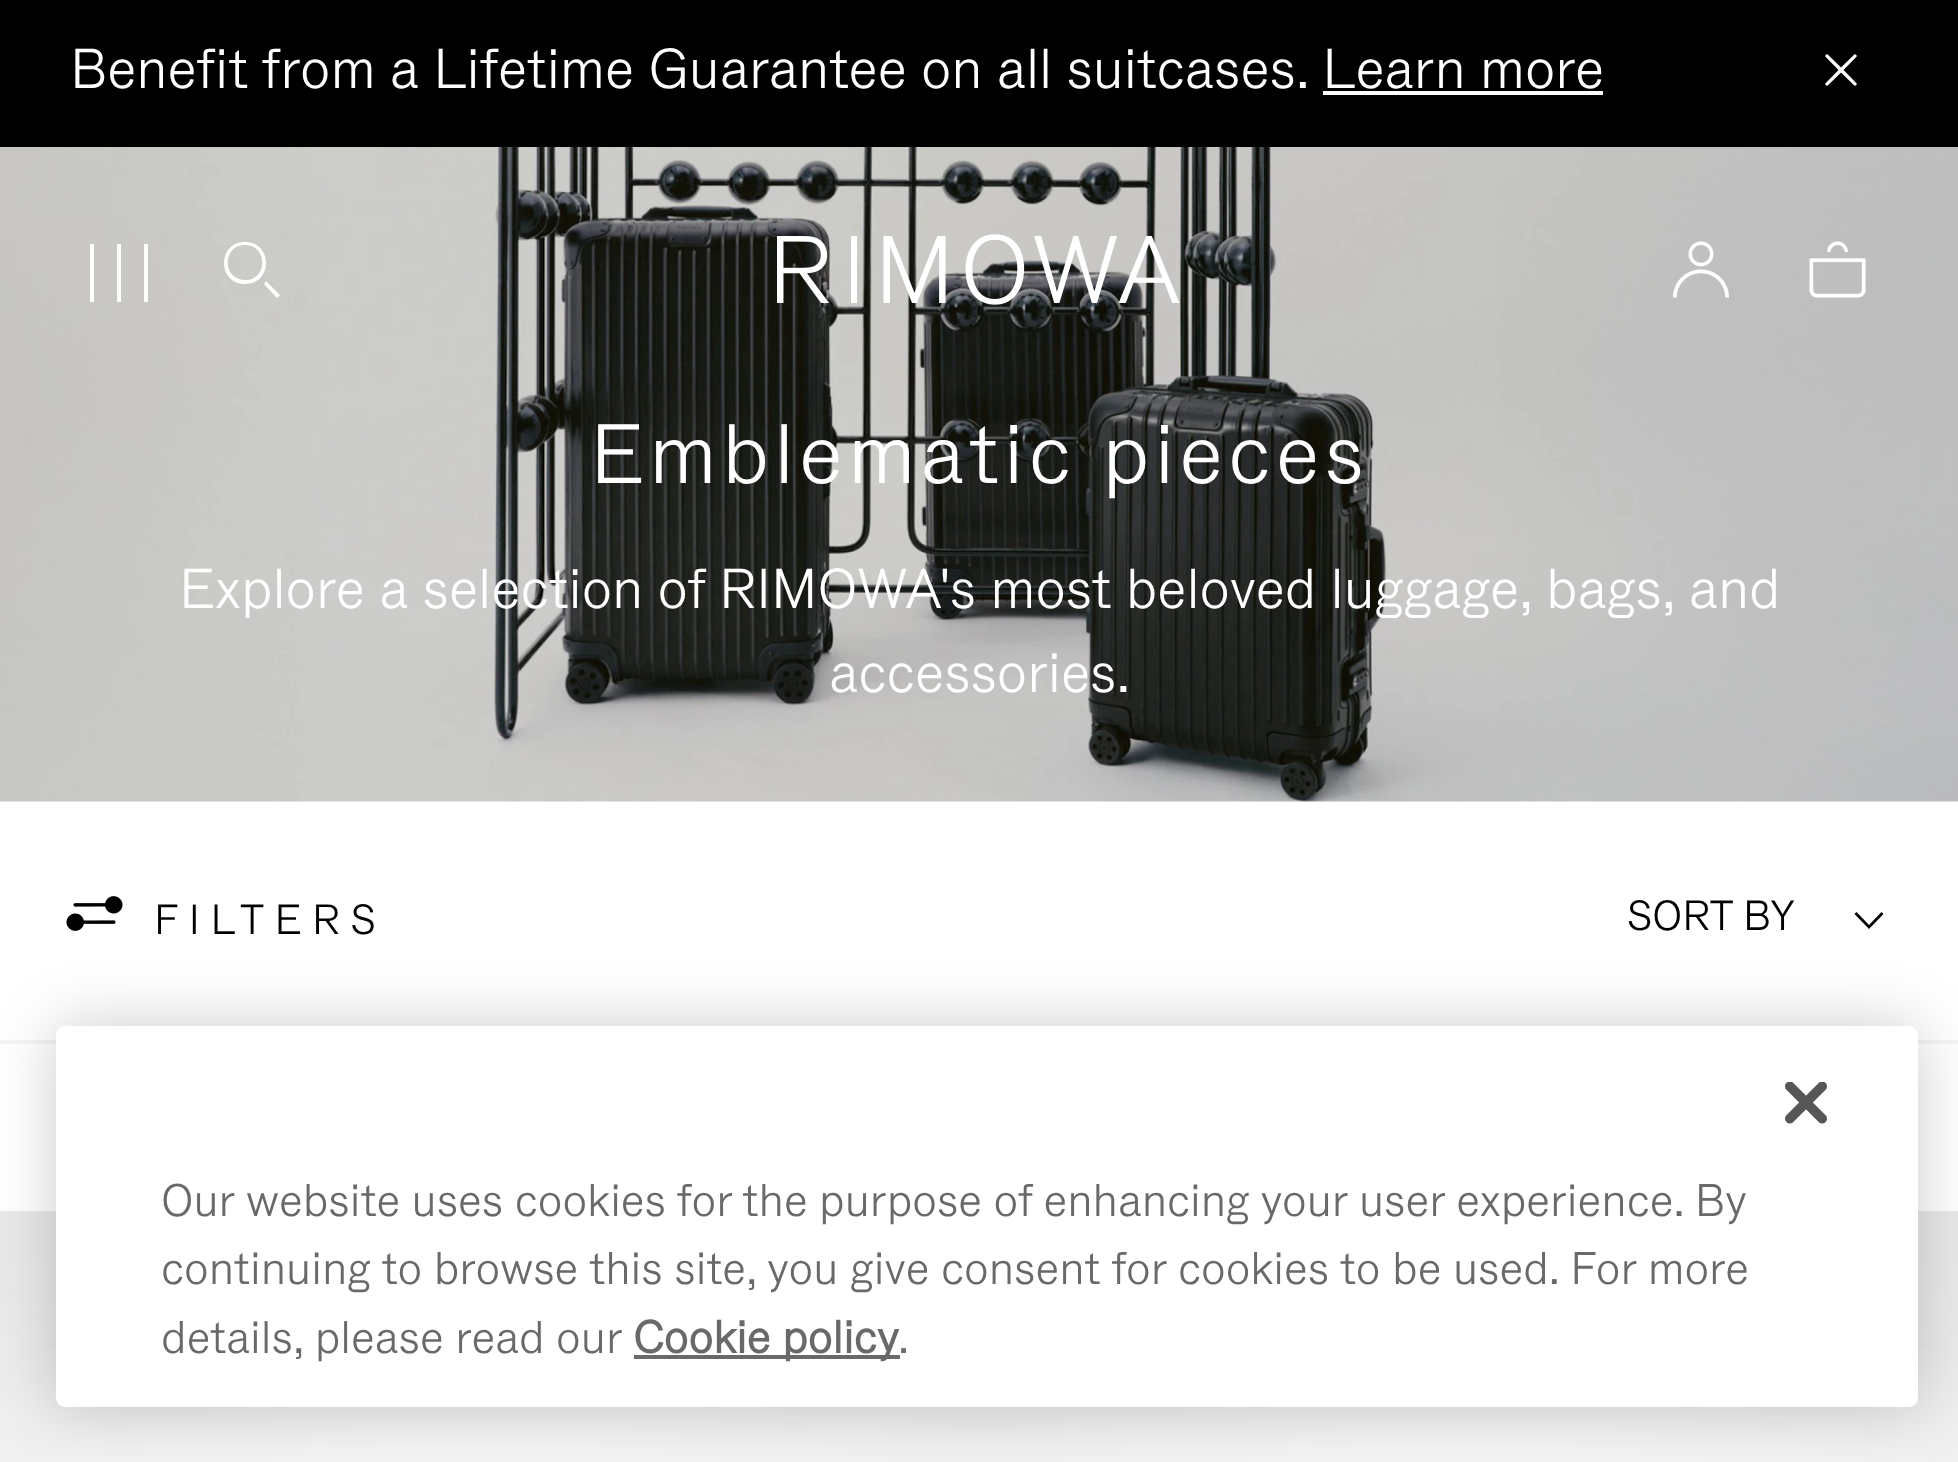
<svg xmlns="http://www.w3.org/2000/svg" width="1958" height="1462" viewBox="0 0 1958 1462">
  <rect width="100%" height="100%" fill="rgb(255,255,255)"/>
  <rect x="0" y="0" width="1958" height="147" fill="rgb(0,0,0)"/>
  <text x="70" y="88" font-family="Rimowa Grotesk" font-size="56" font-weight="300" fill="rgb(255,255,255)">Benefit from a Lifetime Guarantee on all suitcases. Learn more</text>
  <rect x="1323" y="91" width="280" height="4" fill="rgb(255,255,255)"/>
  <image x="1825" y="54" width="32" height="32" href="pic1.png"/>
  <image x="0" y="147" width="1958" height="655" href="pic5.png"/>
  <path d="M148 244V302H144V244ZM94 244V302H90V244ZM121 244V302H117V244Z" fill="rgb(255,255,255)"/>
  <path d="M245 245C268 245 268 280 245 280C222 280 222 245 245 245ZM245 242C217 242 217 284 245 284C273 284 273 242 245 242ZM264 284L266 281L280 295L277 298Z" fill="rgb(255,255,255)"/>
  <image x="777" y="234" width="403" height="71" href="pic2.png"/>
  <image x="1673" y="241" width="56" height="57" href="pic3.png"/>
  <image x="1809" y="241" width="57" height="57" href="pic4.png"/>
  <text x="590" y="483" font-family="Rimowa Grotesk" font-size="84" font-weight="300" letter-spacing="5" fill="rgb(255,255,255)">Emblematic pieces</text>
  <g font-family="Rimowa Grotesk" font-size="56" font-weight="300" fill="rgb(255,255,255)">
    <text x="179" y="608">Explore a selection of RIMOWA's most beloved luggage, bags, and</text>
    <text x="829" y="692">accessories.</text>
  </g>
  <rect x="0" y="1040" width="1958" height="4" fill="rgb(247,245,244)"/>
  <image x="66" y="896" width="57" height="35" href="pic6.png"/>
  <text x="154" y="934" font-family="Rimowa Grotesk" font-size="42" font-weight="300" letter-spacing="10.5" fill="rgb(0,0,0)">FILTERS</text>
  <text x="1627" y="930" font-family="Rimowa Grotesk" font-size="42" font-weight="300" fill="rgb(0,0,0)">SORT BY</text>
  <path d="M1869 929L1854.5 914L1856.5 912L1869 925L1881.5 912L1883.5 914Z" fill="rgb(0,0,0)"/>
  <image x="0" y="1211" width="980" height="251" href="pic7.png"/>
  <image x="980" y="1211" width="978" height="251" href="pic8.png"/>
  <rect x="56" y="1026" width="1862" height="381" rx="9" fill="rgba(0,0,0,0.2)" filter="blur(31.5px)"/>
  <rect x="56" y="1026" width="1862" height="381" rx="9" fill="rgb(255,255,255)"/>
  <image x="1785" y="1082" width="42" height="42" href="pic9.png"/>
  <g font-family="Rimowa Grotesk" font-size="45.55" font-weight="300" fill="rgb(105,105,105)">
    <text>
      <tspan x="161" y="1216" word-spacing="-0.1">Our website uses cookies for the purpose of enhancing your user experience. By</tspan>
      <tspan x="161" y="1284">continuing to browse this site, you give consent for cookies to be used. For more</tspan>
      <tspan x="161" y="1353">details, please read our</tspan>
    </text>
  </g>
  <rect x="634" y="1355" width="266" height="4" fill="rgb(105,105,105)"/>
  <text x="633" y="1353" font-family="Rimowa Grotesk" font-size="45.55" font-weight="bold" fill="rgb(105,105,105)">Cookie policy</text>
  <text x="898" y="1353" font-family="Rimowa Grotesk" font-size="45.55" font-weight="300" fill="rgb(105,105,105)">.</text>
</svg>
